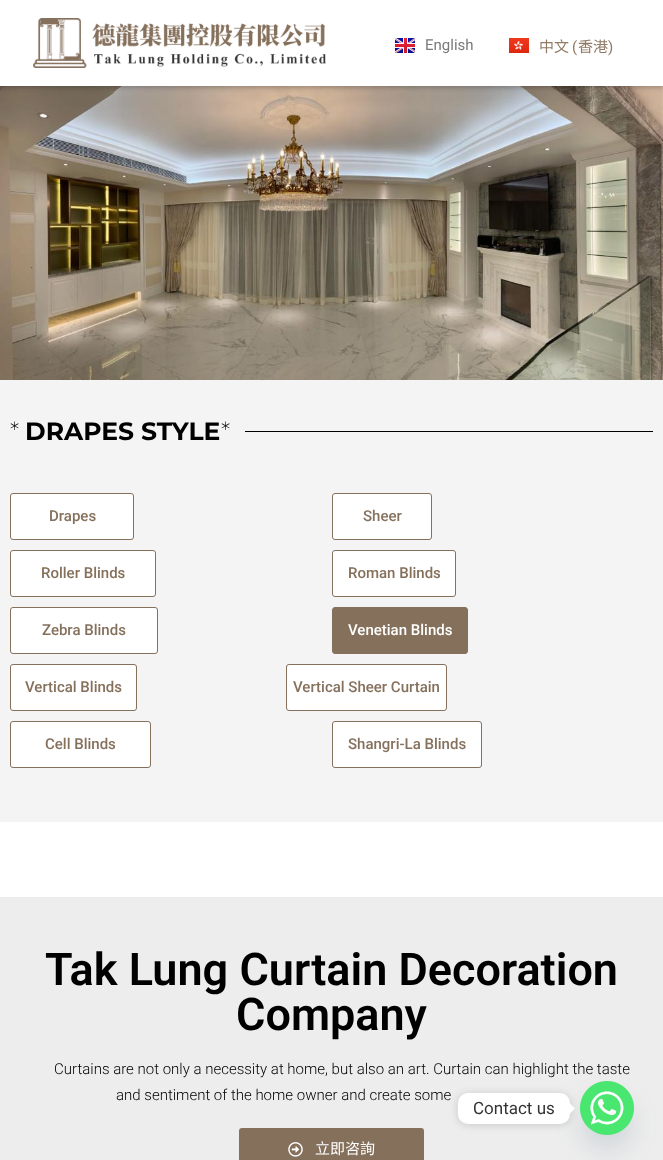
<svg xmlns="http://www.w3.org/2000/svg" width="663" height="1160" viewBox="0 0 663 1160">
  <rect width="100%" height="100%" fill="rgb(255,255,255)"/>
  <image x="0" y="86" width="663" height="294" href="pic4.png"/>
  <rect x="0" y="2" width="663" height="86" fill="rgba(0,0,0,0.21)" filter="blur(2px)"/>
  <rect x="0" y="0" width="663" height="86" fill="rgb(255,255,255)"/>
  <image x="33" y="18" width="293" height="50" href="pic1.png"/>
  <image x="395" y="38" width="20" height="15" href="pic2.png"/>
  <text x="425" y="50" font-family="Roboto" font-size="15" fill="rgb(122,122,122)">English</text>
  <image x="509" y="38" width="20" height="15" href="pic3.png"/>
  <text x="539" y="52" font-family="Noto Sans CJK HK" font-size="15" fill="rgb(146,123,101)">中文</text>
  <text x="572" y="52" font-family="Roboto" font-size="15" fill="rgb(146,123,101)">(</text>
  <text x="578" y="52" font-family="Noto Sans CJK HK" font-size="15" fill="rgb(146,123,101)">香港</text>
  <text x="608" y="52" font-family="Roboto" font-size="15" fill="rgb(146,123,101)">)</text>
  <rect x="0" y="380" width="663" height="442" fill="rgb(244,244,244)"/>
  <text x="10" y="440" font-family="Montserrat" font-size="25" font-weight="200" fill="rgb(0,0,0)">*</text>
  <text x="25" y="440" font-family="Montserrat" font-size="25" font-weight="bold" fill="rgb(0,0,0)">DRAPES STYLE</text>
  <text x="221" y="440" font-family="Montserrat" font-size="25" font-weight="200" fill="rgb(0,0,0)">*</text>
  <rect x="245" y="431" width="408" height="1" fill="rgb(0,0,0)"/>
  <rect x="10.5" y="493.5" width="123" height="46" rx="2.5" fill="rgb(255,255,255)" stroke="rgb(133,112,92)"/>
  <text x="49" y="521" font-family="Roboto" font-size="15" font-weight="500" fill="rgb(133,112,92)">Drapes</text>
  <rect x="332.5" y="493.5" width="99" height="46" rx="2.5" fill="rgb(255,255,255)" stroke="rgb(133,112,92)"/>
  <text x="363" y="521" font-family="Roboto" font-size="15" font-weight="500" fill="rgb(133,112,92)">Sheer</text>
  <rect x="10.5" y="550.5" width="145" height="46" rx="2.5" fill="rgb(255,255,255)" stroke="rgb(133,112,92)"/>
  <text x="41" y="578" font-family="Roboto" font-size="15" font-weight="500" fill="rgb(133,112,92)">Roller Blinds</text>
  <rect x="332.5" y="550.5" width="123" height="46" rx="2.5" fill="rgb(255,255,255)" stroke="rgb(133,112,92)"/>
  <text x="348" y="578" font-family="Roboto" font-size="15" font-weight="500" fill="rgb(133,112,92)">Roman Blinds</text>
  <rect x="10.5" y="607.5" width="147" height="46" rx="2.5" fill="rgb(255,255,255)" stroke="rgb(133,112,92)"/>
  <text x="42" y="635" font-family="Roboto" font-size="15" font-weight="500" fill="rgb(133,112,92)">Zebra Blinds</text>
  <rect x="332.5" y="607.5" width="135" height="46" rx="2.5" fill="rgb(133,112,92)" stroke="rgb(133,112,92)"/>
  <text x="348" y="635" font-family="Roboto" font-size="15" font-weight="500" fill="rgb(255,255,255)">Venetian Blinds</text>
  <rect x="10.5" y="664.5" width="126" height="46" rx="2.5" fill="rgb(255,255,255)" stroke="rgb(133,112,92)"/>
  <text x="25" y="692" font-family="Roboto" font-size="15" font-weight="500" fill="rgb(133,112,92)">Vertical Blinds</text>
  <rect x="286.5" y="664.5" width="160" height="46" rx="2.5" fill="rgb(255,255,255)" stroke="rgb(133,112,92)"/>
  <text x="293" y="692" font-family="Roboto" font-size="15" font-weight="500" fill="rgb(133,112,92)">Vertical Sheer Curtain</text>
  <rect x="10.5" y="721.5" width="140" height="46" rx="2.5" fill="rgb(255,255,255)" stroke="rgb(133,112,92)"/>
  <text x="45" y="749" font-family="Roboto" font-size="15" font-weight="500" fill="rgb(133,112,92)">Cell Blinds</text>
  <rect x="332.5" y="721.5" width="149" height="46" rx="2.5" fill="rgb(255,255,255)" stroke="rgb(133,112,92)"/>
  <text x="348" y="749" font-family="Roboto" font-size="15" font-weight="500" fill="rgb(133,112,92)">Shangri-La Blinds</text>
  <rect x="0" y="897" width="663" height="263" fill="rgb(237,237,237)"/>
  <g font-family="Roboto" font-size="45" font-weight="600" fill="rgb(0,0,0)">
    <text x="45" y="985">Tak Lung Curtain Decoration</text>
    <text x="236" y="1030">Company</text>
  </g>
  <g font-family="Roboto" font-size="15" font-weight="300" fill="rgb(0,0,0)">
    <text x="54" y="1074">Curtains are not only a necessity at home, but also an art. Curtain can highlight the taste</text>
    <text x="116" y="1100">and sentiment of the home owner and create some</text>
  </g>
  <rect x="240" y="1129" width="183" height="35" rx="2" fill="rgb(133,112,92)" stroke="rgb(133,112,92)" stroke-width="2"/>
  <image x="288" y="1142" width="15" height="15" href="pic5.png"/>
  <text x="315" y="1154" font-family="Noto Sans CJK HK" font-size="15" fill="rgb(255,255,255)">立即咨詢</text>
  <rect x="580" y="1097" width="54" height="54" rx="27" fill="rgba(73,104,126,0.16)" filter="blur(12px)"/>
  <image x="580" y="1081" width="54" height="54" href="pic6.png"/>
  <rect x="458" y="1094" width="112" height="31" rx="10" fill="rgba(0,0,0,0.15)" filter="blur(4px)"/>
  <rect x="458" y="1093" width="112" height="31" rx="10" fill="rgb(255,255,255)"/>
  <text x="473" y="1114" font-family="Roboto" font-size="17" fill="rgb(51,51,51)">Contact us</text>
  <path d="M570 1113.5V1103.5L575 1108.5Z" fill="rgb(255,255,255)"/>
</svg>
